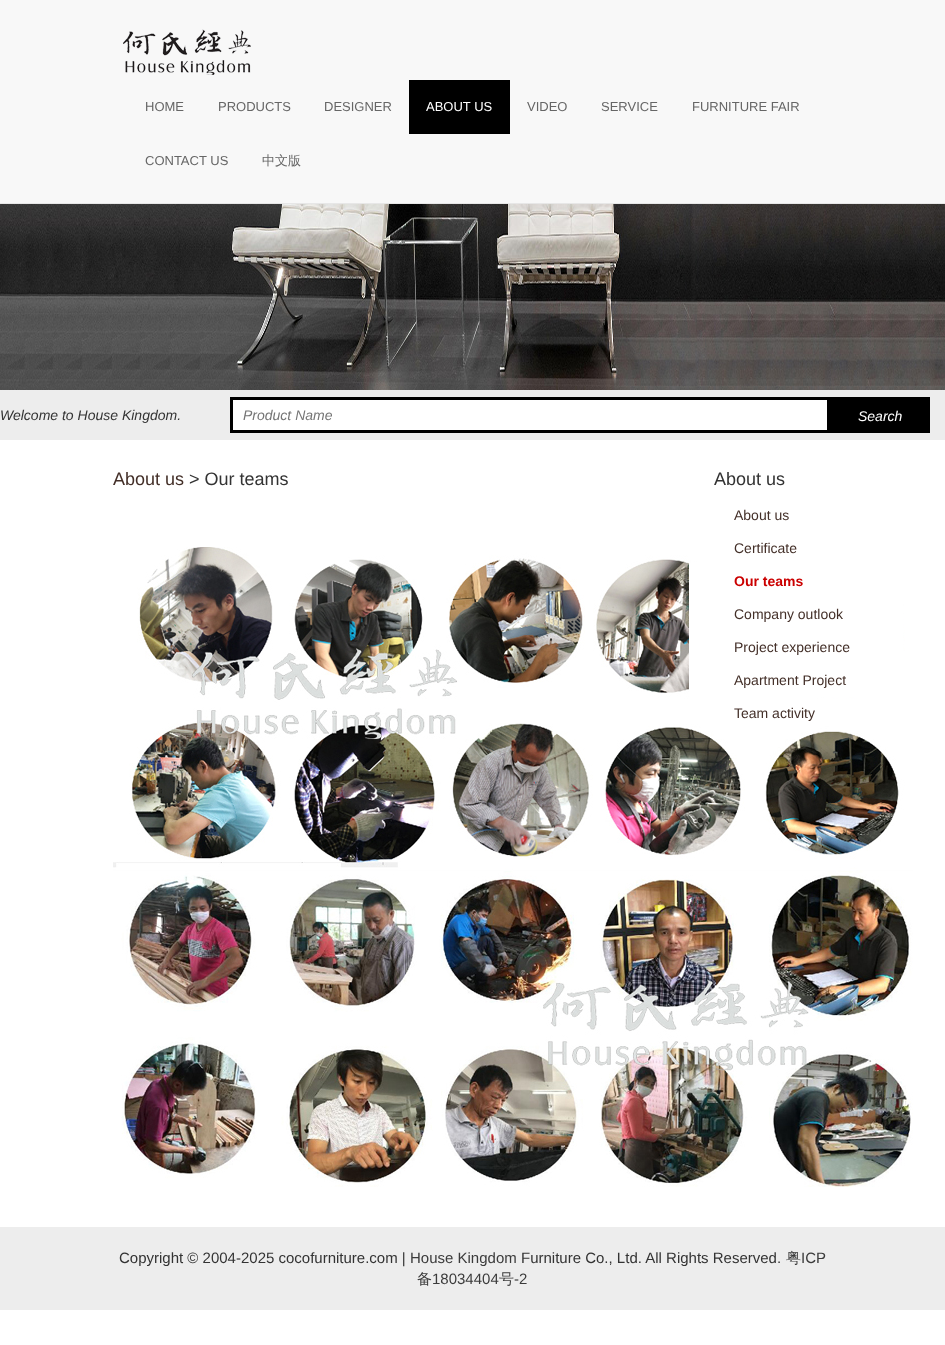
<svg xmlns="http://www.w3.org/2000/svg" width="945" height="1345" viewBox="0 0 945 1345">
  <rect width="100%" height="100%" fill="rgb(255,255,255)"/>
  <rect x="0" y="0" width="945" height="203" fill="rgb(248,248,248)"/>
  <rect x="0" y="203" width="945" height="1" fill="rgb(231,231,231)"/>
  <image x="123" y="29" width="128" height="46" href="pic1.png"/>
  <g font-family="Liberation Sans" font-size="13" fill="rgb(102,102,102)">
    <text x="145" y="111">HOME</text>
    <text x="218" y="111">PRODUCTS</text>
    <text x="324" y="111">DESIGNER</text>
  </g>
  <rect x="409" y="80" width="101" height="54" fill="rgb(0,0,0)"/>
  <text x="426" y="111" font-family="Liberation Sans" font-size="13" fill="rgb(255,255,255)">ABOUT US</text>
  <g font-family="Liberation Sans" font-size="13" fill="rgb(102,102,102)">
    <text x="527" y="111">VIDEO</text>
    <text x="601" y="111">SERVICE</text>
    <text x="692" y="111">FURNITURE FAIR</text>
    <text x="145" y="165">CONTACT US</text>
  </g>
  <text x="262" y="165" font-family="WenQuanYi Zen Hei" font-size="13" font-weight="500" fill="rgb(102,102,102)">中文版</text>
  <image x="0" y="204" width="945" height="186" href="pic2.png"/>
  <rect x="0" y="390" width="945" height="50" fill="rgb(237,237,237)"/>
  <text x="0" y="420" font-family="Liberation Sans" font-size="14" font-style="italic" fill="rgb(51,51,51)">Welcome to House Kingdom.</text>
  <rect x="231.5" y="398.5" width="597" height="33" fill="rgb(255,255,255)" stroke="rgb(0,0,0)" stroke-width="3"/>
  <text x="243" y="420" font-family="Liberation Sans" font-size="14" font-style="italic" fill="rgb(117,117,117)">Product Name</text>
  <rect x="830" y="397" width="100" height="36" fill="rgb(0,0,0)"/>
  <text x="858" y="421" font-family="Liberation Sans" font-size="14" font-style="italic" fill="rgb(255,255,255)">Search</text>
  <text x="113" y="485" font-family="Liberation Sans" font-size="18" fill="rgb(67,47,40)">About us</text>
  <text x="189" y="485" font-family="Liberation Sans" font-size="18" fill="rgb(51,51,51)">&gt; Our teams</text>
  <image x="113" y="547" width="800" height="640" href="pic3.png"/>
  <rect x="689" y="563" width="214" height="134" fill="rgb(255,255,255)"/>
  <text x="714" y="485" font-family="Liberation Sans" font-size="18" fill="rgb(51,51,51)">About us</text>
  <g font-family="Liberation Sans" font-size="14" fill="rgb(67,47,40)">
    <text x="734" y="520">About us</text>
    <text x="734" y="553">Certificate</text>
  </g>
  <text x="734" y="586" font-family="Liberation Sans" font-size="14" font-weight="bold" fill="rgb(203,0,0)">Our teams</text>
  <g font-family="Liberation Sans" font-size="14" fill="rgb(67,47,40)">
    <text x="734" y="619">Company outlook</text>
    <text x="734" y="652">Project experience</text>
    <text x="734" y="685">Apartment Project</text>
    <text x="734" y="718">Team activity</text>
  </g>
  <rect x="0" y="1227" width="945" height="83" fill="rgb(237,237,237)"/>
  <text x="119" y="1263" font-family="Liberation Sans" font-size="15" fill="rgb(51,51,51)">Copyright © 2004-2025 cocofurniture.com |</text>
  <text x="410" y="1263" font-family="Liberation Sans" font-size="15" fill="rgb(59,59,59)">House Kingdom</text>
  <text x="521" y="1263" font-family="Liberation Sans" font-size="15" fill="rgb(51,51,51)">Furniture Co., Ltd. All Rights Reserved.</text>
  <text x="786" y="1263" font-family="WenQuanYi Zen Hei" font-size="15" font-weight="500" fill="rgb(59,59,59)">粤</text>
  <text x="801" y="1263" font-family="Liberation Sans" font-size="15" fill="rgb(59,59,59)">ICP</text>
  <text x="417" y="1284" font-family="WenQuanYi Zen Hei" font-size="15" font-weight="500" fill="rgb(59,59,59)">备</text>
  <text x="432" y="1284" font-family="Liberation Sans" font-size="15" fill="rgb(59,59,59)">18034404</text>
  <text x="499" y="1284" font-family="WenQuanYi Zen Hei" font-size="15" font-weight="500" fill="rgb(59,59,59)">号</text>
  <text x="514" y="1284" font-family="Liberation Sans" font-size="15" fill="rgb(59,59,59)">-2</text>
</svg>
